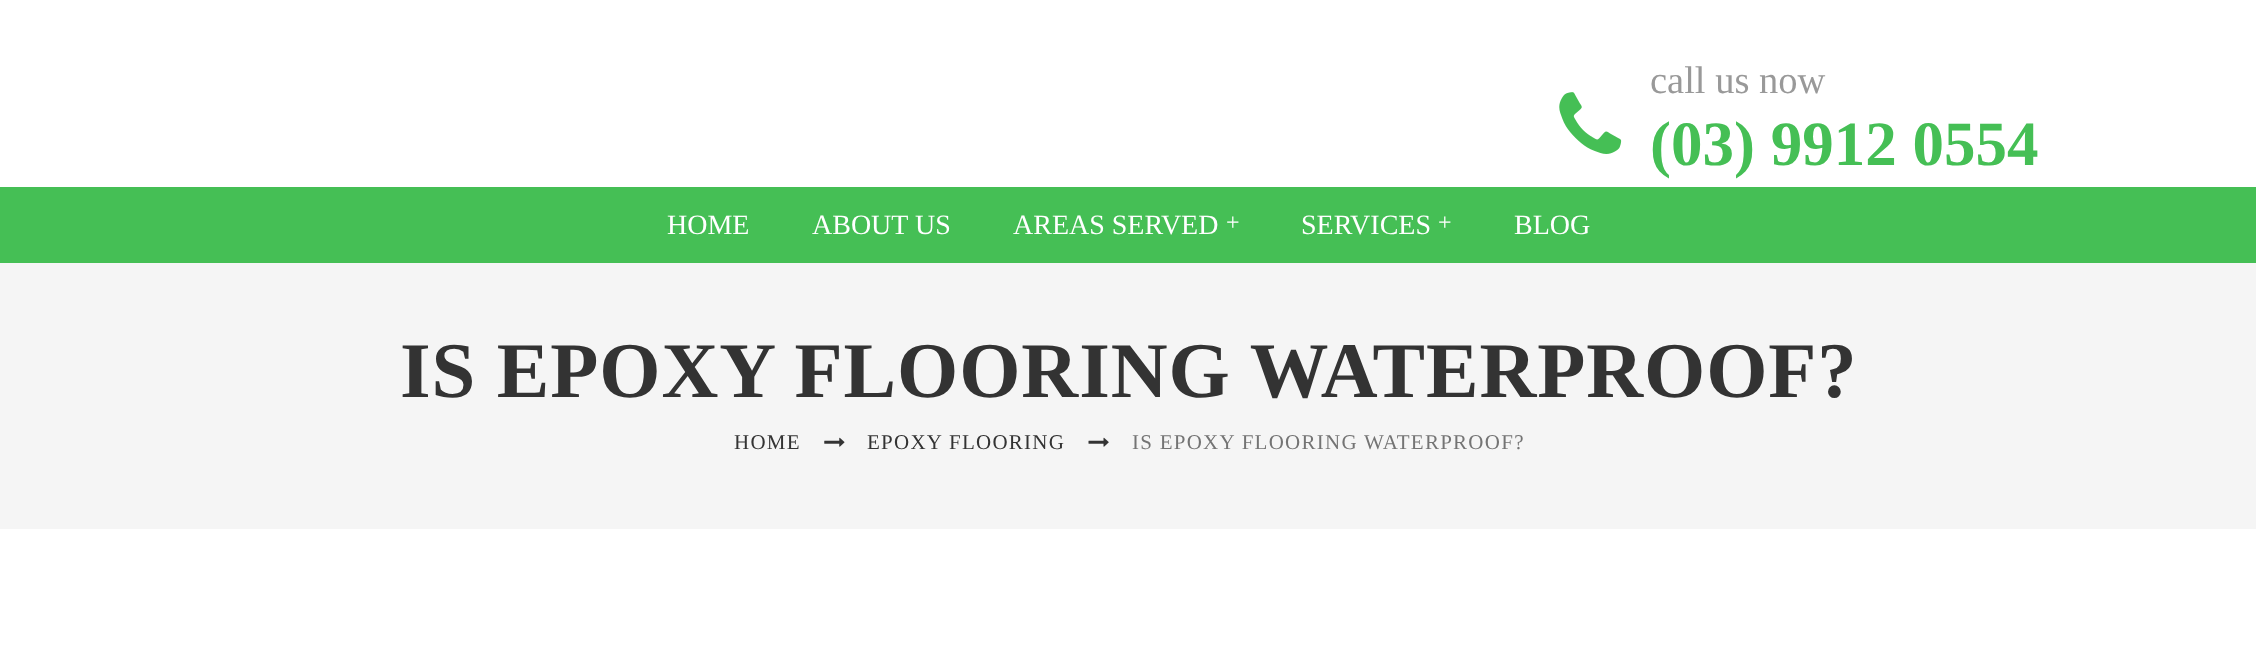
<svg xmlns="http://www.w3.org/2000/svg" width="2256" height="654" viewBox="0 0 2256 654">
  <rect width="100%" height="100%" fill="rgb(255,255,255)"/>
  <rect x="0" y="187" width="2256" height="76" fill="rgb(69,191,85)"/>
  <text x="1650" y="93" font-family="Liberation Serif" font-size="38.5" fill="rgb(153,153,153)">call us now</text>
  <image x="1559" y="92" width="63" height="62" href="pic1.png"/>
  <text x="1650" y="165" font-family="Liberation Serif" font-size="63" font-weight="bold" fill="rgb(69,191,85)">(03) 9912 0554</text>
  <g font-family="Liberation Serif" font-size="28" fill="rgb(255,255,255)">
    <text x="667" y="234">HOME</text>
    <text x="812" y="234">ABOUT US</text>
    <text x="1013" y="234">AREAS SERVED</text>
  </g>
  <text x="1226" y="230" font-family="Liberation Serif" font-size="24" fill="rgb(255,255,255)">+</text>
  <text x="1301" y="234" font-family="Liberation Serif" font-size="28" fill="rgb(255,255,255)">SERVICES</text>
  <text x="1438" y="230" font-family="Liberation Serif" font-size="24" fill="rgb(255,255,255)">+</text>
  <text x="1514" y="234" font-family="Liberation Serif" font-size="28" fill="rgb(255,255,255)">BLOG</text>
  <rect x="0" y="263" width="2256" height="266" fill="rgb(245,245,245)"/>
  <text x="400" y="397" font-family="Liberation Serif" font-size="78.75" font-weight="bold" letter-spacing="0.9" fill="rgb(51,51,51)">IS EPOXY FLOORING WATERPROOF?</text>
  <text x="734" y="449" font-family="Liberation Serif" font-size="21" letter-spacing="1.25" fill="rgb(51,51,51)">HOME</text>
  <image x="824" y="437" width="21" height="10" href="pic2.png"/>
  <text x="867" y="449" font-family="Liberation Serif" font-size="21" letter-spacing="1.25" fill="rgb(51,51,51)">EPOXY FLOORING</text>
  <image x="1088" y="437" width="21" height="10" href="pic3.png"/>
  <text x="1132" y="449" font-family="Liberation Serif" font-size="21" letter-spacing="1.25" fill="rgb(116,116,116)">IS EPOXY FLOORING WATERPROOF?</text>
</svg>
